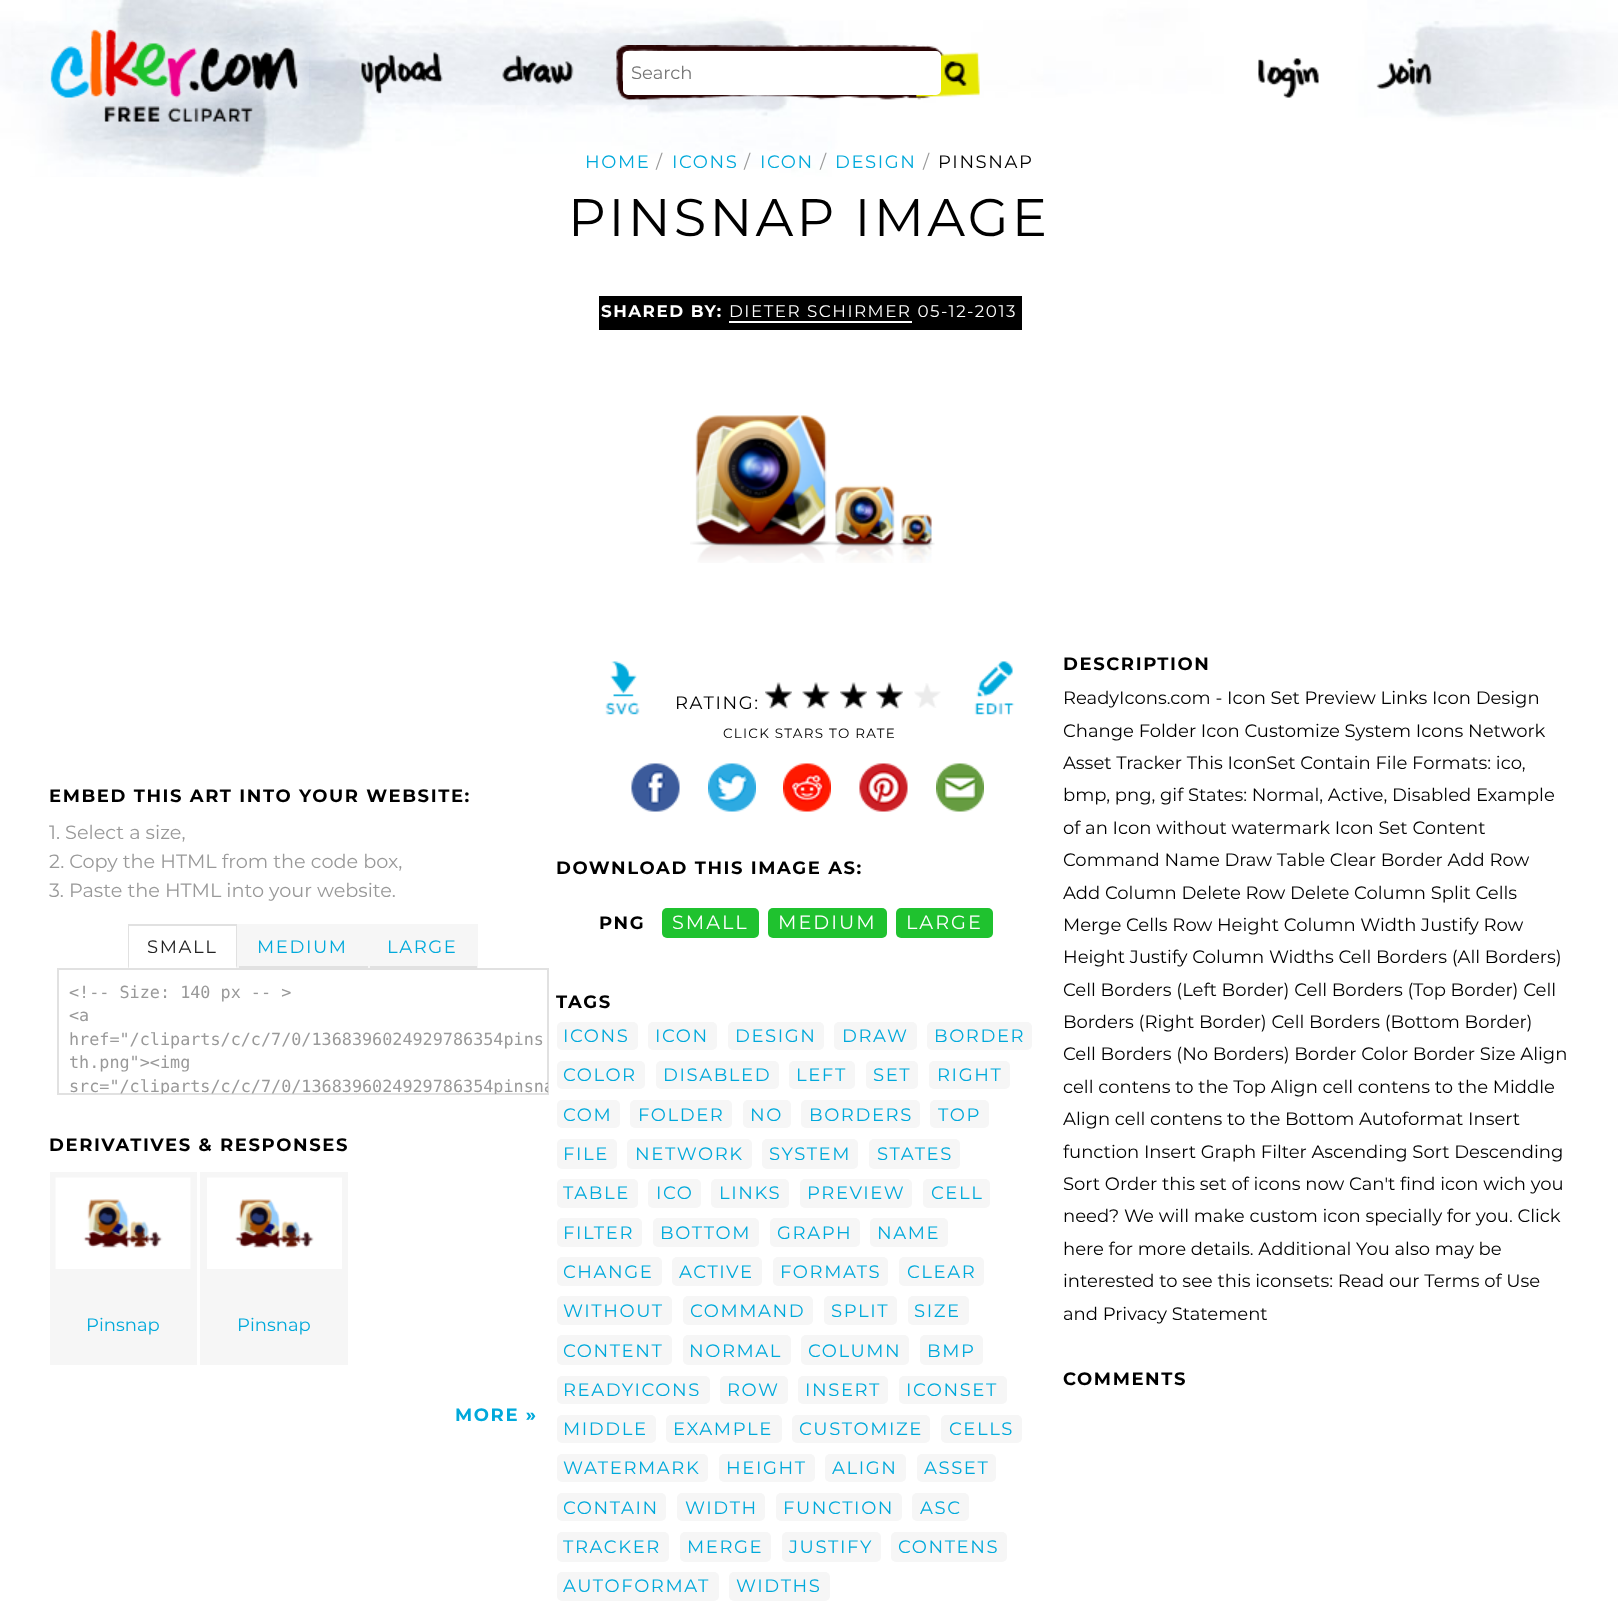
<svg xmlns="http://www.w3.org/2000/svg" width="1618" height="1608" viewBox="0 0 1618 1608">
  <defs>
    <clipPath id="clip1"><rect x="59" y="969" width="489" height="125"/></clipPath>
  </defs>
  <rect width="100%" height="100%" fill="rgb(255,255,255)"/>
  <image x="0" y="0" width="1618" height="177" href="pic1.png"/>
  <image x="43" y="19" width="266" height="103" href="pic2.png"/>
  <image x="361" y="52" width="82" height="42" href="pic3.png"/>
  <image x="502" y="55" width="72" height="30" href="pic4.png"/>
  <image x="616" y="45" width="364" height="56" href="pic5.png"/>
  <rect x="623" y="51" width="318" height="44" rx="5" fill="rgb(255,255,255)"/>
  <text x="631" y="79" font-family="Montserrat" font-size="18" fill="rgb(117,117,117)">Search</text>
  <image x="1258" y="58" width="61" height="40" href="pic6.png"/>
  <image x="1376" y="58" width="56" height="31" href="pic7.png"/>
  <text x="585" y="168" font-family="Montserrat" font-size="18" letter-spacing="1.6" fill="rgb(0,169,219)">HOME</text>
  <text x="656" y="168" font-family="Montserrat" font-size="18" letter-spacing="1.6" fill="rgb(153,153,153)">/</text>
  <text x="672" y="168" font-family="Montserrat" font-size="18" letter-spacing="1.6" fill="rgb(0,169,219)">ICONS</text>
  <text x="744" y="168" font-family="Montserrat" font-size="18" letter-spacing="1.6" fill="rgb(153,153,153)">/</text>
  <text x="760" y="168" font-family="Montserrat" font-size="18" letter-spacing="1.6" fill="rgb(0,169,219)">ICON</text>
  <text x="820" y="168" font-family="Montserrat" font-size="18" letter-spacing="1.6" fill="rgb(153,153,153)">/</text>
  <text x="835" y="168" font-family="Montserrat" font-size="18" letter-spacing="1.6" fill="rgb(0,169,219)">DESIGN</text>
  <text x="923" y="168" font-family="Montserrat" font-size="18" letter-spacing="1.6" fill="rgb(153,153,153)">/</text>
  <text x="938" y="168" font-family="Montserrat" font-size="18" letter-spacing="1.6" fill="rgb(0,0,0)">PINSNAP</text>
  <text x="568" y="236" font-family="Montserrat" font-size="52.75" letter-spacing="3.2" fill="rgb(0,0,0)">PINSNAP IMAGE</text>
  <text x="49" y="802" font-family="Montserrat" font-size="18" font-weight="bold" letter-spacing="1.6" fill="rgb(0,0,0)">EMBED THIS ART INTO YOUR WEBSITE:</text>
  <g font-family="Montserrat" font-size="19.25" fill="rgb(153,153,153)">
    <text>
      <tspan x="49" y="839">1. Select a size,</tspan>
      <tspan x="49" y="868">2. Copy the HTML from the code box,</tspan>
      <tspan x="49" y="897">3. Paste the HTML into your website.</tspan>
    </text>
  </g>
  <text x="147" y="953" font-family="Montserrat" font-size="18" letter-spacing="1.6" fill="rgb(34,34,34)">SMALL</text>
  <rect x="128" y="924" width="109" height="2" fill="rgb(225,225,225)"/>
  <path d="M237 924V970L236 966V926Z" fill="rgb(225,225,225)"/>
  <path d="M237 970H128L129 966H236Z" fill="rgb(255,255,255)"/>
  <path d="M128 970V924L129 926V966Z" fill="rgb(225,225,225)"/>
  <rect x="239" y="924" width="129" height="42" fill="rgb(246,246,246)"/>
  <text x="257" y="953" font-family="Montserrat" font-size="18" letter-spacing="1.6" fill="rgb(0,169,219)">MEDIUM</text>
  <rect x="237" y="966" width="131" height="2" fill="rgb(225,225,225)"/>
  <rect x="237" y="924" width="2" height="44" fill="rgb(246,246,246)"/>
  <rect x="370" y="924" width="106" height="42" fill="rgb(246,246,246)"/>
  <text x="387" y="953" font-family="Montserrat" font-size="18" letter-spacing="1.6" fill="rgb(0,169,219)">LARGE</text>
  <rect x="476" y="924" width="2" height="44" fill="rgb(246,246,246)"/>
  <rect x="368" y="966" width="109" height="2" fill="rgb(225,225,225)"/>
  <rect x="368" y="924" width="2" height="44" fill="rgb(246,246,246)"/>
  <rect x="58" y="969" width="490" height="125" fill="none" stroke="rgb(225,225,225)" stroke-width="2"/>
  <g font-family="DejaVu Sans Mono" font-size="16.8" fill="rgb(153,153,153)">
    <text>
      <tspan x="69" y="998">&lt;!-- Size: 140 px -- &gt;</tspan>
      <tspan x="69" y="1021">&lt;a</tspan>
      <tspan x="69" y="1045">href="/cliparts/c/c/7/0/1368396024929786354pins</tspan>
      <tspan x="69" y="1068">th.png"&gt;&lt;img</tspan>
    </text>
  </g>
  <g clip-path="url(#clip1)">
    <text x="69" y="1092" font-family="DejaVu Sans Mono" font-size="16.8" fill="rgb(153,153,153)">src="/cliparts/c/c/7/0/1368396024929786354pinsna</text>
  </g>
  <text x="49" y="1151" font-family="Montserrat" font-size="18" font-weight="bold" letter-spacing="1.6" fill="rgb(0,0,0)">DERIVATIVES &amp; RESPONSES</text>
  <rect x="50" y="1172" width="147" height="193" fill="rgb(246,246,246)"/>
  <image x="55" y="1177" width="136" height="92" href="pic8.png"/>
  <text x="86" y="1331" font-family="Montserrat" font-size="18" fill="rgb(0,169,219)">Pinsnap</text>
  <rect x="200" y="1172" width="148" height="193" fill="rgb(246,246,246)"/>
  <image x="207" y="1177" width="135" height="92" href="pic9.png"/>
  <text x="237" y="1331" font-family="Montserrat" font-size="18" fill="rgb(0,169,219)">Pinsnap</text>
  <text x="455" y="1421" font-family="Montserrat" font-size="18" font-weight="bold" letter-spacing="1.6" fill="rgb(0,169,219)">MORE »</text>
  <rect x="599" y="296" width="423" height="34" fill="rgb(0,0,0)"/>
  <text x="601" y="317" font-family="Montserrat" font-size="16.8" font-weight="bold" letter-spacing="1.5" fill="rgb(255,255,255)">SHARED BY:</text>
  <text x="729" y="317" font-family="Montserrat" font-size="16.8" letter-spacing="1.5" fill="rgb(255,255,255)">DIETER SCHIRMER 05-12-2013</text>
  <rect x="729" y="321" width="183" height="2" fill="rgb(255,255,255)"/>
  <image x="690" y="415" width="245" height="148" href="pic10.png"/>
  <image x="605" y="661" width="35" height="54" href="pic11.png"/>
  <image x="974" y="661" width="41" height="54" href="pic12.png"/>
  <text x="675" y="709" font-family="Montserrat" font-size="18" letter-spacing="1.6" fill="rgb(0,0,0)">RATING:</text>
  <image x="765" y="682" width="27" height="27" href="pic13.png"/>
  <image x="802" y="682" width="28" height="27" href="pic14.png"/>
  <image x="840" y="682" width="27" height="27" href="pic13.png"/>
  <image x="876" y="682" width="27" height="27" href="pic13.png"/>
  <image x="914" y="683" width="27" height="25" href="pic15.png"/>
  <text x="723" y="738" font-family="Montserrat" font-size="13.5" letter-spacing="1.25" fill="rgb(0,0,0)">CLICK STARS TO RATE</text>
  <image x="631" y="763" width="49" height="49" href="pic16.png"/>
  <image x="708" y="763" width="48" height="49" href="pic17.png"/>
  <image x="783" y="763" width="48" height="49" href="pic18.png"/>
  <image x="859" y="763" width="49" height="49" href="pic19.png"/>
  <image x="936" y="763" width="48" height="49" href="pic20.png"/>
  <g font-family="Montserrat" font-size="18" font-weight="bold" letter-spacing="1.6" fill="rgb(0,0,0)">
    <text x="556" y="874">DOWNLOAD THIS IMAGE AS:</text>
    <text x="599" y="929">PNG</text>
  </g>
  <rect x="662" y="908" width="97" height="30" rx="5" fill="rgb(31,194,47)"/>
  <text x="672" y="929" font-family="Montserrat" font-size="19.25" letter-spacing="2" fill="rgb(255,255,255)">SMALL</text>
  <rect x="768" y="908" width="119" height="30" rx="5" fill="rgb(31,194,47)"/>
  <text x="778" y="929" font-family="Montserrat" font-size="19.25" letter-spacing="2" fill="rgb(255,255,255)">MEDIUM</text>
  <rect x="896" y="908" width="97" height="30" rx="5" fill="rgb(31,194,47)"/>
  <text x="906" y="929" font-family="Montserrat" font-size="19.25" letter-spacing="2" fill="rgb(255,255,255)">LARGE</text>
  <text x="556" y="1008" font-family="Montserrat" font-size="18" font-weight="bold" letter-spacing="1.6" fill="rgb(0,0,0)">TAGS</text>
  <rect x="557" y="1022" width="81" height="28" rx="5" fill="rgb(246,246,246)"/>
  <text x="563" y="1042" font-family="Montserrat" font-size="18" letter-spacing="1.6" fill="rgb(0,169,219)">ICONS</text>
  <rect x="648" y="1022" width="69" height="28" rx="5" fill="rgb(246,246,246)"/>
  <text x="655" y="1042" font-family="Montserrat" font-size="18" letter-spacing="1.6" fill="rgb(0,169,219)">ICON</text>
  <rect x="728" y="1022" width="96" height="28" rx="5" fill="rgb(246,246,246)"/>
  <text x="735" y="1042" font-family="Montserrat" font-size="18" letter-spacing="1.6" fill="rgb(0,169,219)">DESIGN</text>
  <rect x="834" y="1022" width="83" height="28" rx="5" fill="rgb(246,246,246)"/>
  <text x="842" y="1042" font-family="Montserrat" font-size="18" letter-spacing="1.6" fill="rgb(0,169,219)">DRAW</text>
  <rect x="927" y="1022" width="105" height="28" rx="5" fill="rgb(246,246,246)"/>
  <text x="934" y="1042" font-family="Montserrat" font-size="18" letter-spacing="1.6" fill="rgb(0,169,219)">BORDER</text>
  <rect x="557" y="1061" width="88" height="28" rx="5" fill="rgb(246,246,246)"/>
  <text x="563" y="1081" font-family="Montserrat" font-size="18" letter-spacing="1.6" fill="rgb(0,169,219)">COLOR</text>
  <rect x="656" y="1061" width="123" height="28" rx="5" fill="rgb(246,246,246)"/>
  <text x="663" y="1081" font-family="Montserrat" font-size="18" letter-spacing="1.6" fill="rgb(0,169,219)">DISABLED</text>
  <rect x="789" y="1061" width="66" height="28" rx="5" fill="rgb(246,246,246)"/>
  <text x="796" y="1081" font-family="Montserrat" font-size="18" letter-spacing="1.6" fill="rgb(0,169,219)">LEFT</text>
  <rect x="866" y="1061" width="52" height="28" rx="5" fill="rgb(246,246,246)"/>
  <text x="873" y="1081" font-family="Montserrat" font-size="18" letter-spacing="1.6" fill="rgb(0,169,219)">SET</text>
  <rect x="929" y="1061" width="81" height="28" rx="5" fill="rgb(246,246,246)"/>
  <text x="937" y="1081" font-family="Montserrat" font-size="18" letter-spacing="1.6" fill="rgb(0,169,219)">RIGHT</text>
  <rect x="557" y="1100" width="63" height="28" rx="5" fill="rgb(246,246,246)"/>
  <text x="563" y="1121" font-family="Montserrat" font-size="18" letter-spacing="1.6" fill="rgb(0,169,219)">COM</text>
  <rect x="630" y="1100" width="102" height="28" rx="5" fill="rgb(246,246,246)"/>
  <text x="638" y="1121" font-family="Montserrat" font-size="18" letter-spacing="1.6" fill="rgb(0,169,219)">FOLDER</text>
  <rect x="743" y="1100" width="48" height="28" rx="5" fill="rgb(246,246,246)"/>
  <text x="750" y="1121" font-family="Montserrat" font-size="18" letter-spacing="1.6" fill="rgb(0,169,219)">NO</text>
  <rect x="801" y="1100" width="119" height="28" rx="5" fill="rgb(246,246,246)"/>
  <text x="809" y="1121" font-family="Montserrat" font-size="18" letter-spacing="1.6" fill="rgb(0,169,219)">BORDERS</text>
  <rect x="930" y="1100" width="59" height="28" rx="5" fill="rgb(246,246,246)"/>
  <text x="938" y="1121" font-family="Montserrat" font-size="18" letter-spacing="1.6" fill="rgb(0,169,219)">TOP</text>
  <rect x="557" y="1139" width="60" height="30" rx="5" fill="rgb(246,246,246)"/>
  <text x="563" y="1160" font-family="Montserrat" font-size="18" letter-spacing="1.6" fill="rgb(0,169,219)">FILE</text>
  <rect x="627" y="1139" width="125" height="30" rx="5" fill="rgb(246,246,246)"/>
  <text x="635" y="1160" font-family="Montserrat" font-size="18" letter-spacing="1.6" fill="rgb(0,169,219)">NETWORK</text>
  <rect x="762" y="1139" width="96" height="30" rx="5" fill="rgb(246,246,246)"/>
  <text x="769" y="1160" font-family="Montserrat" font-size="18" letter-spacing="1.6" fill="rgb(0,169,219)">SYSTEM</text>
  <rect x="869" y="1139" width="91" height="30" rx="5" fill="rgb(246,246,246)"/>
  <text x="877" y="1160" font-family="Montserrat" font-size="18" letter-spacing="1.6" fill="rgb(0,169,219)">STATES</text>
  <rect x="557" y="1179" width="81" height="29" rx="5" fill="rgb(246,246,246)"/>
  <text x="563" y="1199" font-family="Montserrat" font-size="18" letter-spacing="1.6" fill="rgb(0,169,219)">TABLE</text>
  <rect x="648" y="1179" width="53" height="29" rx="5" fill="rgb(246,246,246)"/>
  <text x="656" y="1199" font-family="Montserrat" font-size="18" letter-spacing="1.6" fill="rgb(0,169,219)">ICO</text>
  <rect x="711" y="1179" width="78" height="29" rx="5" fill="rgb(246,246,246)"/>
  <text x="719" y="1199" font-family="Montserrat" font-size="18" letter-spacing="1.6" fill="rgb(0,169,219)">LINKS</text>
  <rect x="800" y="1179" width="112" height="29" rx="5" fill="rgb(246,246,246)"/>
  <text x="807" y="1199" font-family="Montserrat" font-size="18" letter-spacing="1.6" fill="rgb(0,169,219)">PREVIEW</text>
  <rect x="923" y="1179" width="67" height="29" rx="5" fill="rgb(246,246,246)"/>
  <text x="931" y="1199" font-family="Montserrat" font-size="18" letter-spacing="1.6" fill="rgb(0,169,219)">CELL</text>
  <rect x="557" y="1218" width="85" height="29" rx="5" fill="rgb(246,246,246)"/>
  <text x="563" y="1239" font-family="Montserrat" font-size="18" letter-spacing="1.6" fill="rgb(0,169,219)">FILTER</text>
  <rect x="653" y="1218" width="106" height="29" rx="5" fill="rgb(246,246,246)"/>
  <text x="660" y="1239" font-family="Montserrat" font-size="18" letter-spacing="1.6" fill="rgb(0,169,219)">BOTTOM</text>
  <rect x="770" y="1218" width="90" height="29" rx="5" fill="rgb(246,246,246)"/>
  <text x="777" y="1239" font-family="Montserrat" font-size="18" letter-spacing="1.6" fill="rgb(0,169,219)">GRAPH</text>
  <rect x="870" y="1218" width="78" height="29" rx="5" fill="rgb(246,246,246)"/>
  <text x="877" y="1239" font-family="Montserrat" font-size="18" letter-spacing="1.6" fill="rgb(0,169,219)">NAME</text>
  <rect x="557" y="1257" width="105" height="29" rx="5" fill="rgb(246,246,246)"/>
  <text x="563" y="1278" font-family="Montserrat" font-size="18" letter-spacing="1.6" fill="rgb(0,169,219)">CHANGE</text>
  <rect x="672" y="1257" width="90" height="29" rx="5" fill="rgb(246,246,246)"/>
  <text x="679" y="1278" font-family="Montserrat" font-size="18" letter-spacing="1.6" fill="rgb(0,169,219)">ACTIVE</text>
  <rect x="773" y="1257" width="115" height="29" rx="5" fill="rgb(246,246,246)"/>
  <text x="780" y="1278" font-family="Montserrat" font-size="18" letter-spacing="1.6" fill="rgb(0,169,219)">FORMATS</text>
  <rect x="899" y="1257" width="85" height="29" rx="5" fill="rgb(246,246,246)"/>
  <text x="907" y="1278" font-family="Montserrat" font-size="18" letter-spacing="1.6" fill="rgb(0,169,219)">CLEAR</text>
  <rect x="557" y="1296" width="115" height="29" rx="5" fill="rgb(246,246,246)"/>
  <text x="563" y="1317" font-family="Montserrat" font-size="18" letter-spacing="1.6" fill="rgb(0,169,219)">WITHOUT</text>
  <rect x="683" y="1296" width="130" height="29" rx="5" fill="rgb(246,246,246)"/>
  <text x="690" y="1317" font-family="Montserrat" font-size="18" letter-spacing="1.6" fill="rgb(0,169,219)">COMMAND</text>
  <rect x="824" y="1296" width="73" height="29" rx="5" fill="rgb(246,246,246)"/>
  <text x="831" y="1317" font-family="Montserrat" font-size="18" letter-spacing="1.6" fill="rgb(0,169,219)">SPLIT</text>
  <rect x="908" y="1296" width="61" height="29" rx="5" fill="rgb(246,246,246)"/>
  <text x="914" y="1317" font-family="Montserrat" font-size="18" letter-spacing="1.6" fill="rgb(0,169,219)">SIZE</text>
  <rect x="557" y="1335" width="115" height="30" rx="5" fill="rgb(246,246,246)"/>
  <text x="563" y="1357" font-family="Montserrat" font-size="18" letter-spacing="1.6" fill="rgb(0,169,219)">CONTENT</text>
  <rect x="683" y="1335" width="108" height="30" rx="5" fill="rgb(246,246,246)"/>
  <text x="689" y="1357" font-family="Montserrat" font-size="18" letter-spacing="1.6" fill="rgb(0,169,219)">NORMAL</text>
  <rect x="801" y="1335" width="108" height="30" rx="5" fill="rgb(246,246,246)"/>
  <text x="808" y="1357" font-family="Montserrat" font-size="18" letter-spacing="1.6" fill="rgb(0,169,219)">COLUMN</text>
  <rect x="920" y="1335" width="63" height="30" rx="5" fill="rgb(246,246,246)"/>
  <text x="927" y="1357" font-family="Montserrat" font-size="18" letter-spacing="1.6" fill="rgb(0,169,219)">BMP</text>
  <rect x="557" y="1376" width="153" height="28" rx="5" fill="rgb(246,246,246)"/>
  <text x="563" y="1396" font-family="Montserrat" font-size="18" letter-spacing="1.6" fill="rgb(0,169,219)">READYICONS</text>
  <rect x="720" y="1376" width="68" height="28" rx="5" fill="rgb(246,246,246)"/>
  <text x="727" y="1396" font-family="Montserrat" font-size="18" letter-spacing="1.6" fill="rgb(0,169,219)">ROW</text>
  <rect x="798" y="1376" width="90" height="28" rx="5" fill="rgb(246,246,246)"/>
  <text x="805" y="1396" font-family="Montserrat" font-size="18" letter-spacing="1.6" fill="rgb(0,169,219)">INSERT</text>
  <rect x="899" y="1376" width="108" height="28" rx="5" fill="rgb(246,246,246)"/>
  <text x="906" y="1396" font-family="Montserrat" font-size="18" letter-spacing="1.6" fill="rgb(0,169,219)">ICONSET</text>
  <rect x="557" y="1415" width="99" height="28" rx="5" fill="rgb(246,246,246)"/>
  <text x="563" y="1435" font-family="Montserrat" font-size="18" letter-spacing="1.6" fill="rgb(0,169,219)">MIDDLE</text>
  <rect x="666" y="1415" width="116" height="28" rx="5" fill="rgb(246,246,246)"/>
  <text x="673" y="1435" font-family="Montserrat" font-size="18" letter-spacing="1.6" fill="rgb(0,169,219)">EXAMPLE</text>
  <rect x="792" y="1415" width="138" height="28" rx="5" fill="rgb(246,246,246)"/>
  <text x="799" y="1435" font-family="Montserrat" font-size="18" letter-spacing="1.6" fill="rgb(0,169,219)">CUSTOMIZE</text>
  <rect x="941" y="1415" width="81" height="28" rx="5" fill="rgb(246,246,246)"/>
  <text x="949" y="1435" font-family="Montserrat" font-size="18" letter-spacing="1.6" fill="rgb(0,169,219)">CELLS</text>
  <rect x="557" y="1454" width="151" height="28" rx="5" fill="rgb(246,246,246)"/>
  <text x="563" y="1474" font-family="Montserrat" font-size="18" letter-spacing="1.6" fill="rgb(0,169,219)">WATERMARK</text>
  <rect x="719" y="1454" width="96" height="28" rx="5" fill="rgb(246,246,246)"/>
  <text x="726" y="1474" font-family="Montserrat" font-size="18" letter-spacing="1.6" fill="rgb(0,169,219)">HEIGHT</text>
  <rect x="825" y="1454" width="81" height="28" rx="5" fill="rgb(246,246,246)"/>
  <text x="832" y="1474" font-family="Montserrat" font-size="18" letter-spacing="1.6" fill="rgb(0,169,219)">ALIGN</text>
  <rect x="917" y="1454" width="79" height="28" rx="5" fill="rgb(246,246,246)"/>
  <text x="924" y="1474" font-family="Montserrat" font-size="18" letter-spacing="1.6" fill="rgb(0,169,219)">ASSET</text>
  <rect x="557" y="1493" width="109" height="28" rx="5" fill="rgb(246,246,246)"/>
  <text x="563" y="1514" font-family="Montserrat" font-size="18" letter-spacing="1.6" fill="rgb(0,169,219)">CONTAIN</text>
  <rect x="677" y="1493" width="88" height="28" rx="5" fill="rgb(246,246,246)"/>
  <text x="685" y="1514" font-family="Montserrat" font-size="18" letter-spacing="1.6" fill="rgb(0,169,219)">WIDTH</text>
  <rect x="776" y="1493" width="126" height="28" rx="5" fill="rgb(246,246,246)"/>
  <text x="783" y="1514" font-family="Montserrat" font-size="18" letter-spacing="1.6" fill="rgb(0,169,219)">FUNCTION</text>
  <rect x="912" y="1493" width="57" height="28" rx="5" fill="rgb(246,246,246)"/>
  <text x="920" y="1514" font-family="Montserrat" font-size="18" letter-spacing="1.6" fill="rgb(0,169,219)">ASC</text>
  <rect x="557" y="1532" width="112" height="30" rx="5" fill="rgb(246,246,246)"/>
  <text x="563" y="1553" font-family="Montserrat" font-size="18" letter-spacing="1.6" fill="rgb(0,169,219)">TRACKER</text>
  <rect x="680" y="1532" width="91" height="30" rx="5" fill="rgb(246,246,246)"/>
  <text x="687" y="1553" font-family="Montserrat" font-size="18" letter-spacing="1.6" fill="rgb(0,169,219)">MERGE</text>
  <rect x="782" y="1532" width="99" height="30" rx="5" fill="rgb(246,246,246)"/>
  <text x="789" y="1553" font-family="Montserrat" font-size="18" letter-spacing="1.6" fill="rgb(0,169,219)">JUSTIFY</text>
  <rect x="891" y="1532" width="116" height="30" rx="5" fill="rgb(246,246,246)"/>
  <text x="898" y="1553" font-family="Montserrat" font-size="18" letter-spacing="1.6" fill="rgb(0,169,219)">CONTENS</text>
  <rect x="557" y="1572" width="162" height="29" rx="5" fill="rgb(246,246,246)"/>
  <text x="563" y="1592" font-family="Montserrat" font-size="18" letter-spacing="1.6" fill="rgb(0,169,219)">AUTOFORMAT</text>
  <rect x="729" y="1572" width="101" height="29" rx="5" fill="rgb(246,246,246)"/>
  <text x="736" y="1592" font-family="Montserrat" font-size="18" letter-spacing="1.6" fill="rgb(0,169,219)">WIDTHS</text>
  <text x="1063" y="670" font-family="Montserrat" font-size="18" font-weight="bold" letter-spacing="1.6" fill="rgb(0,0,0)">DESCRIPTION</text>
  <g font-family="Montserrat" font-size="18" fill="rgb(0,0,0)">
    <text>
      <tspan x="1063" y="704">ReadyIcons.com - Icon Set Preview Links Icon Design</tspan>
      <tspan x="1063" y="737">Change Folder Icon Customize System Icons Network</tspan>
      <tspan x="1063" y="769">Asset Tracker This IconSet Contain File Formats: ico,</tspan>
      <tspan x="1063" y="801">bmp, png, gif States: Normal, Active, Disabled Example</tspan>
      <tspan x="1063" y="834">of an Icon without watermark Icon Set Content</tspan>
      <tspan x="1063" y="866">Command Name Draw Table Clear Border Add Row</tspan>
      <tspan x="1063" y="899">Add Column Delete Row Delete Column Split Cells</tspan>
      <tspan x="1063" y="931">Merge Cells Row Height Column Width Justify Row</tspan>
      <tspan x="1063" y="963">Height Justify Column Widths Cell Borders (All Borders)</tspan>
      <tspan x="1063" y="996">Cell Borders (Left Border) Cell Borders (Top Border) Cell</tspan>
      <tspan x="1063" y="1028">Borders (Right Border) Cell Borders (Bottom Border)</tspan>
      <tspan x="1063" y="1060">Cell Borders (No Borders) Border Color Border Size Align</tspan>
      <tspan x="1063" y="1093">cell contens to the Top Align cell contens to the Middle</tspan>
      <tspan x="1063" y="1125">Align cell contens to the Bottom Autoformat Insert</tspan>
      <tspan x="1063" y="1158">function Insert Graph Filter Ascending Sort Descending</tspan>
      <tspan x="1063" y="1190">Sort Order this set of icons now Can't find icon wich you</tspan>
      <tspan x="1063" y="1222">need? We will make custom icon specially for you. Click</tspan>
      <tspan x="1063" y="1255">here for more details. Additional You also may be</tspan>
      <tspan x="1063" y="1287">interested to see this iconsets: Read our Terms of Use</tspan>
      <tspan x="1063" y="1320">and Privacy Statement</tspan>
    </text>
  </g>
  <text x="1063" y="1385" font-family="Montserrat" font-size="18" font-weight="bold" letter-spacing="1.6" fill="rgb(0,0,0)">COMMENTS</text>
</svg>
